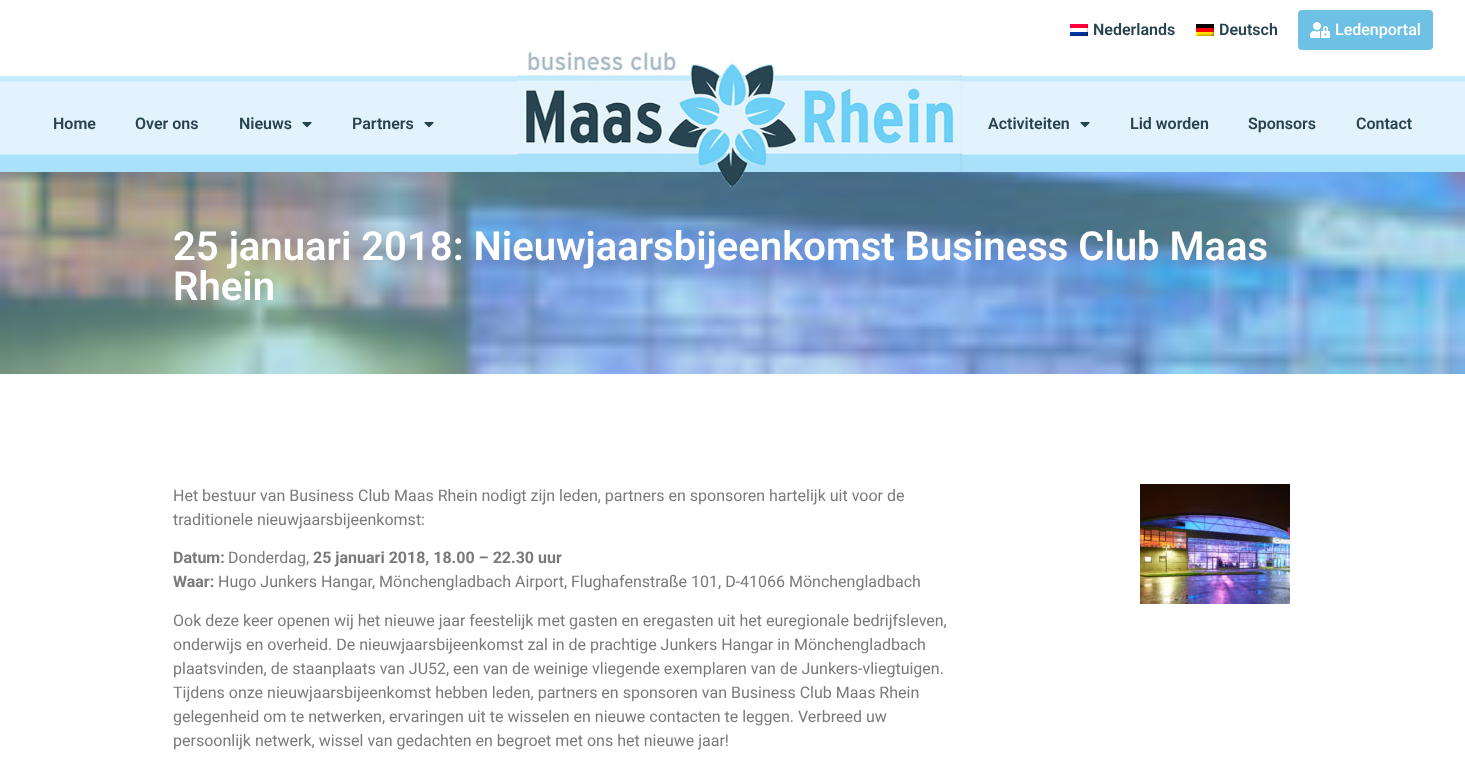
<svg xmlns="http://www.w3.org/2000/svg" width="1465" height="773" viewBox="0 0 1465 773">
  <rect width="100%" height="100%" fill="rgb(255,255,255)"/>
  <image x="1070" y="24" width="18" height="12" href="pic1.png"/>
  <text x="1093" y="35" font-family="Roboto" font-size="16" font-weight="600" fill="rgb(39,67,79)">Nederlands</text>
  <image x="1196" y="24" width="18" height="12" href="pic2.png"/>
  <text x="1219" y="35" font-family="Roboto" font-size="16" font-weight="600" fill="rgb(39,67,79)">Deutsch</text>
  <rect x="1299" y="11" width="133" height="38" rx="3" fill="rgb(110,193,228)" stroke="rgb(110,193,228)" stroke-width="2"/>
  <image x="1310" y="22" width="20" height="16" href="pic3.png"/>
  <text x="1335" y="35" font-family="Roboto" font-size="16" font-weight="500" fill="rgb(255,255,255)">Ledenportal</text>
  <image x="0" y="172" width="1465" height="202" href="pic6.png"/>
  <image x="0" y="50" width="1465" height="137" href="pic4.png"/>
  <g font-family="Roboto" font-size="16" font-weight="600" fill="rgb(39,67,79)">
    <text x="53" y="129">Home</text>
    <text x="135" y="129">Over ons</text>
    <text x="239" y="129">Nieuws</text>
  </g>
  <image x="302" y="122" width="10" height="6" href="pic5.png"/>
  <text x="352" y="129" font-family="Roboto" font-size="16" font-weight="600" fill="rgb(39,67,79)">Partners</text>
  <image x="424" y="122" width="10" height="6" href="pic5.png"/>
  <text x="988" y="129" font-family="Roboto" font-size="16" font-weight="600" fill="rgb(39,67,79)">Activiteiten</text>
  <image x="1080" y="122" width="10" height="6" href="pic5.png"/>
  <g font-family="Roboto" font-size="16" font-weight="600" fill="rgb(39,67,79)">
    <text x="1130" y="129">Lid worden</text>
    <text x="1248" y="129">Sponsors</text>
    <text x="1356" y="129">Contact</text>
  </g>
  <g font-family="Roboto" font-size="40" font-weight="600" fill="rgb(255,255,255)">
    <text>
      <tspan x="173" y="260">25 januari 2018: Nieuwjaarsbijeenkomst Business Club Maas</tspan>
      <tspan x="173" y="300">Rhein</tspan>
    </text>
  </g>
  <g font-family="Roboto" font-size="16" fill="rgb(122,122,122)">
    <text>
      <tspan x="173" y="501">Het bestuur van Business Club Maas Rhein nodigt zijn leden, partners en sponsoren hartelijk uit voor de</tspan>
      <tspan x="173" y="525">traditionele nieuwjaarsbijeenkomst:</tspan>
    </text>
  </g>
  <text x="173" y="563" font-family="Roboto" font-size="16" font-weight="bold" fill="rgb(122,122,122)">Datum:</text>
  <text x="228" y="563" font-family="Roboto" font-size="16" fill="rgb(122,122,122)">Donderdag,</text>
  <g font-family="Roboto" font-size="16" font-weight="bold" fill="rgb(122,122,122)">
    <text x="313" y="563">25 januari 2018, 18.00 – 22.30 uur</text>
    <text x="173" y="587">Waar:</text>
  </g>
  <g font-family="Roboto" font-size="16" fill="rgb(122,122,122)">
    <text x="218" y="587">Hugo Junkers Hangar, Mönchengladbach Airport, Flughafenstraße 101, D-41066 Mönchengladbach</text>
    <text>
      <tspan x="173" y="626">Ook deze keer openen wij het nieuwe jaar feestelijk met gasten en eregasten uit het euregionale bedrijfsleven,</tspan>
      <tspan x="173" y="650">onderwijs en overheid. De nieuwjaarsbijeenkomst zal in de prachtige Junkers Hangar in Mönchengladbach</tspan>
      <tspan x="173" y="674">plaatsvinden, de staanplaats van JU52, een van de weinige vliegende exemplaren van de Junkers-vliegtuigen.</tspan>
      <tspan x="173" y="698">Tijdens onze nieuwjaarsbijeenkomst hebben leden, partners en sponsoren van Business Club Maas Rhein</tspan>
      <tspan x="173" y="722">gelegenheid om te netwerken, ervaringen uit te wisselen en nieuwe contacten te leggen. Verbreed uw</tspan>
      <tspan x="173" y="746">persoonlijk netwerk, wissel van gedachten en begroet met ons het nieuwe jaar!</tspan>
    </text>
  </g>
  <image x="1140" y="484" width="150" height="120" href="pic7.png"/>
</svg>
